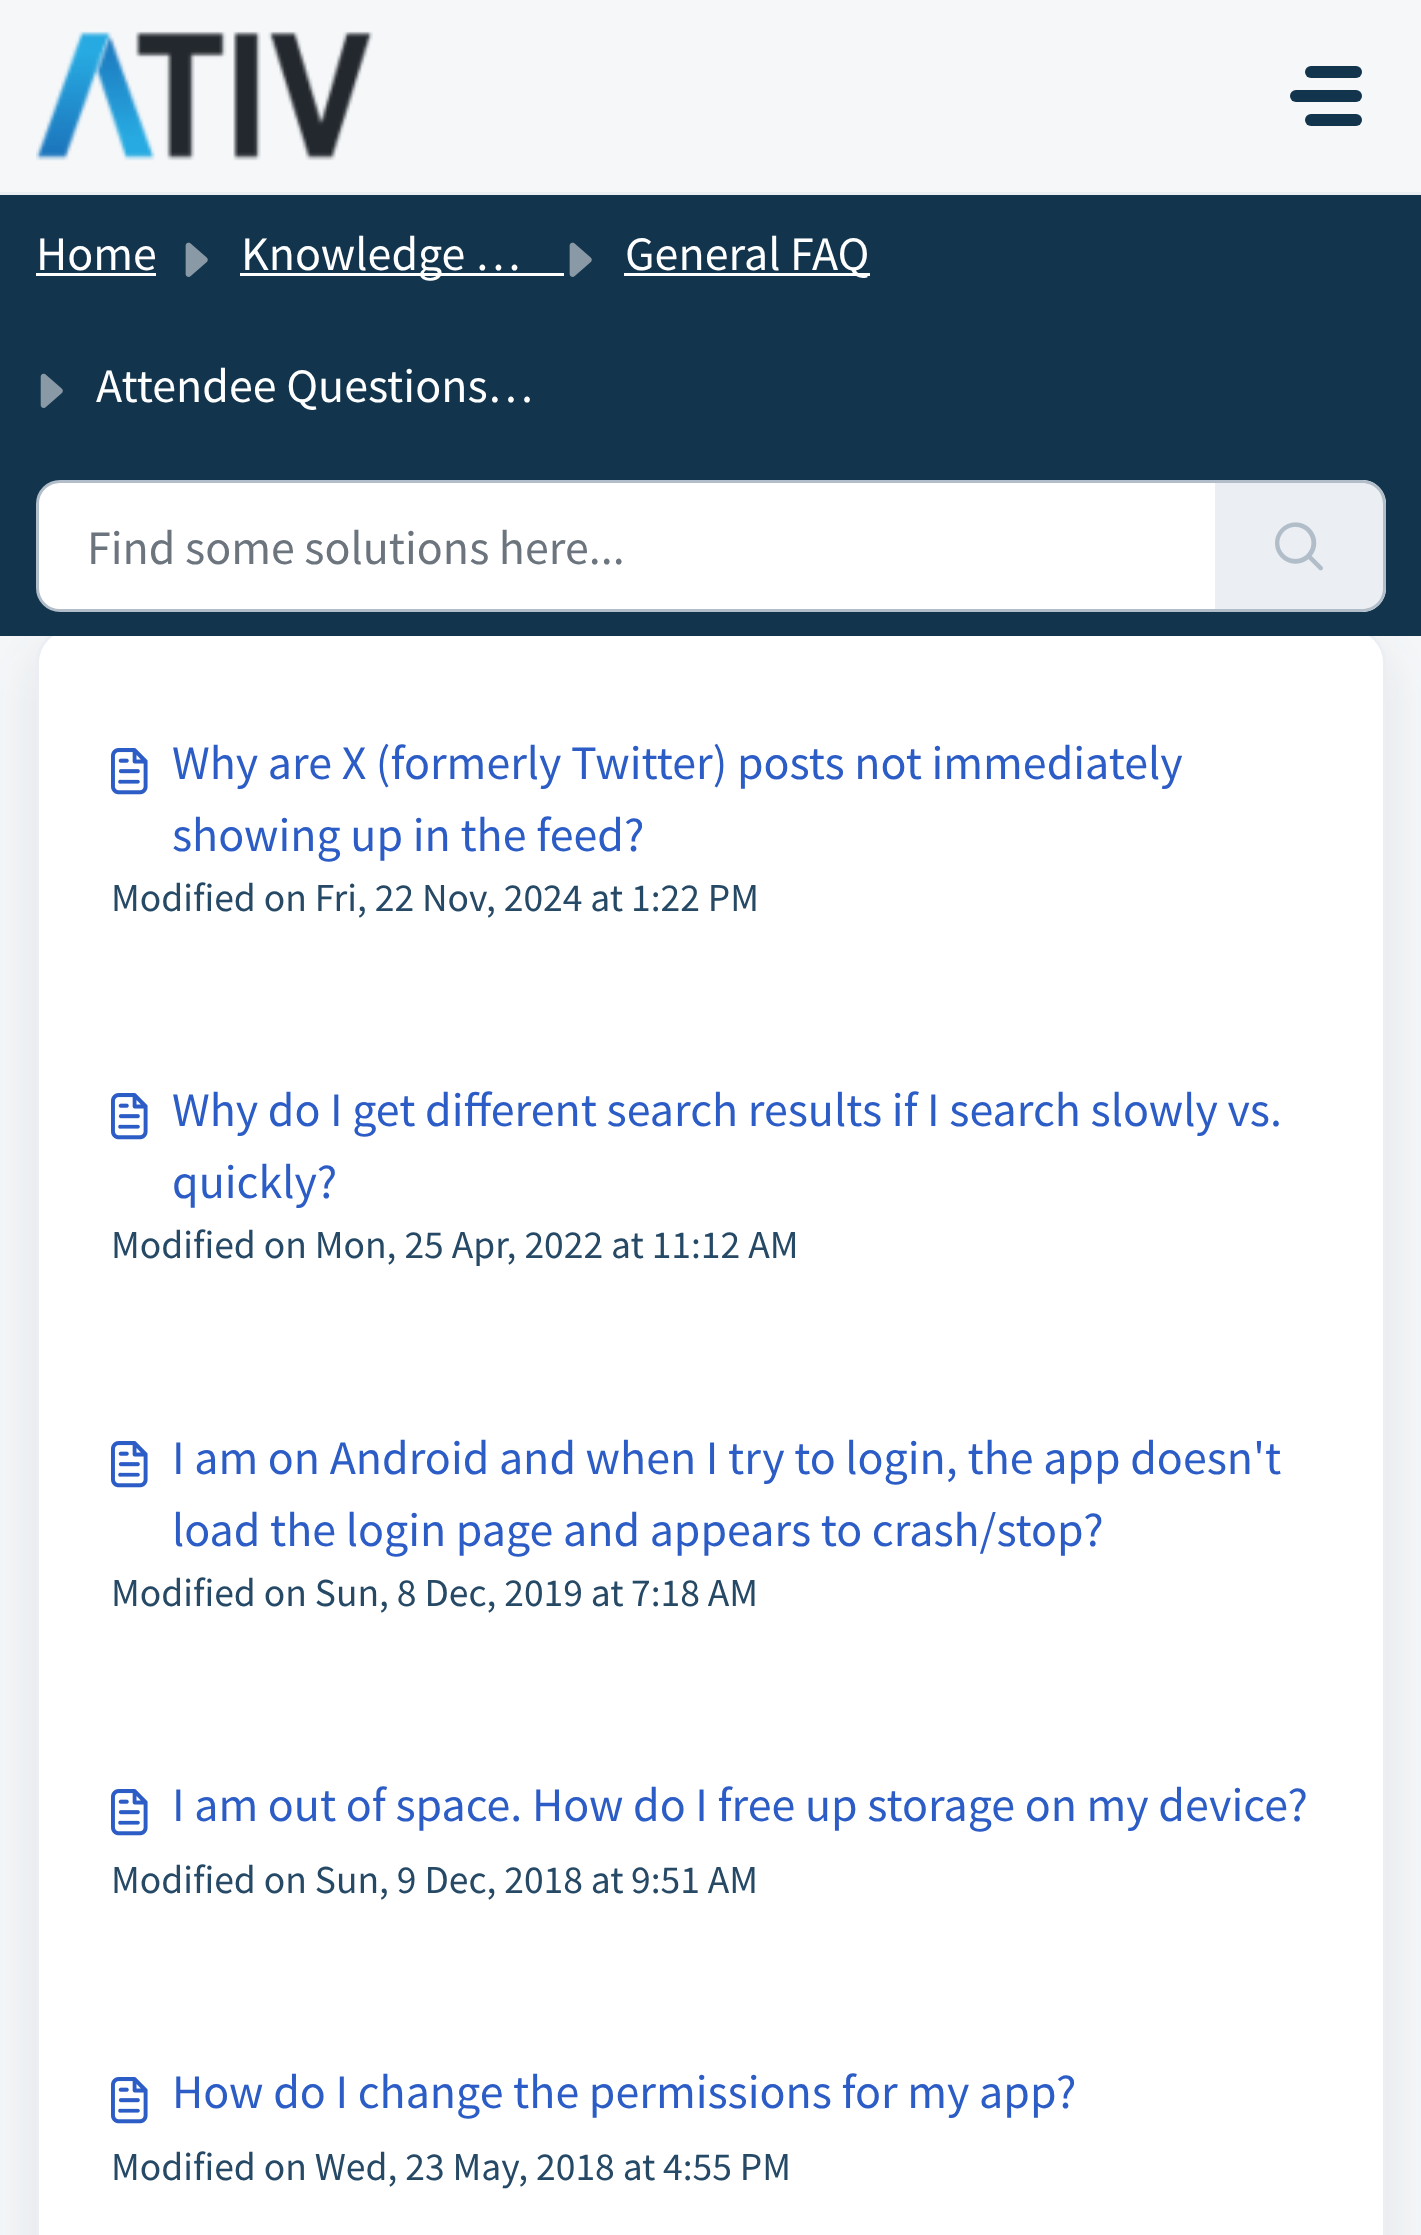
<svg xmlns="http://www.w3.org/2000/svg" width="1421" height="2235" viewBox="0 0 1421 2235">
  <rect width="100%" height="100%" fill="rgb(245,247,249)"/>
  <rect x="0" y="192" width="1421" height="3" fill="rgb(235,239,243)"/>
  <image x="36" y="31" width="337" height="130" href="pic1.png"/>
  <rect x="1305" y="66" width="57" height="12" rx="6" fill="rgb(18,52,77)"/>
  <rect x="1290" y="90" width="72" height="12" rx="6" fill="rgb(18,52,77)"/>
  <rect x="1305" y="114" width="57" height="12" rx="6" fill="rgb(18,52,77)"/>
  <rect x="36" y="645" width="1350" height="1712" rx="36" fill="rgba(39,49,58,0.1)" filter="blur(28.5px)"/>
  <rect x="37.5" y="628.5" width="1347" height="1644" rx="34.5" fill="rgb(255,255,255)" stroke="rgb(235,239,243)" stroke-width="3"/>
  <rect x="0" y="195" width="1421" height="441" fill="rgb(18,52,77)"/>
  <text x="36" y="270" font-family="Source Sans Pro" font-size="48" fill="rgb(255,255,255)">Home</text>
  <rect x="36" y="273" width="120" height="3" fill="rgb(255,255,255)"/>
  <image x="185" y="242" width="23" height="35" href="pic2.png"/>
  <rect x="240" y="273" width="324" height="3" fill="rgb(255,255,255)"/>
  <text x="241" y="270" font-family="Source Sans Pro" font-size="48" fill="rgb(255,255,255)">Knowledge …</text>
  <image x="569" y="242" width="23" height="35" href="pic2.png"/>
  <rect x="624" y="273" width="246" height="3" fill="rgb(255,255,255)"/>
  <text x="625" y="270" font-family="Source Sans Pro" font-size="48" fill="rgb(255,255,255)">General FAQ</text>
  <image x="40" y="373" width="23" height="35" href="pic3.png"/>
  <text x="96" y="402" font-family="Source Sans Pro" font-size="48" fill="rgb(255,255,255)">Attendee Questions…</text>
  <path d="M60 481.5H1216.5V610.5H60C47.5 610.5 37.5 600.5 37.5 588V504C37.5 491.5 47.5 481.5 60 481.5Z" fill="rgb(255,255,255)" stroke="rgb(177,189,200)" stroke-width="3"/>
  <text x="87" y="564" font-family="Source Sans Pro" font-size="48" fill="rgb(108,117,125)">Find some solutions here...</text>
  <path d="M1215 480H1362C1375.5 480 1386 490.5 1386 504V588C1386 601.5 1375.5 612 1362 612H1215Z" fill="rgb(235,239,243)"/>
  <path d="M1215 480H1362C1375 480 1386 491 1386 504V588C1386 601 1375 612 1362 612H1215ZM1215 483H1362C1374 483 1383 492 1383 504V588C1383 600 1374 609 1362 609H1215Z" fill="rgb(177,189,200)" fill-rule="evenodd"/>
  <image x="1275" y="522" width="48" height="49" href="pic4.png"/>
  <image x="111" y="748" width="37" height="47" href="pic5.png"/>
  <g font-family="Source Sans Pro" font-size="48" fill="rgb(44,92,197)">
    <text>
      <tspan x="172" y="779">Why are X (formerly Twitter) posts not immediately</tspan>
      <tspan x="172" y="851">showing up in the feed?</tspan>
    </text>
  </g>
  <g font-family="Source Sans Pro" font-size="39.6" fill="rgb(38,73,102)">
    <text x="111" y="911">Modified on Fri, 22 Nov, 2024 at</text>
    <text x="631" y="911">1:22 PM</text>
  </g>
  <image x="111" y="1093" width="37" height="47" href="pic5.png"/>
  <g font-family="Source Sans Pro" font-size="48" fill="rgb(44,92,197)">
    <text>
      <tspan x="172" y="1126">Why do I get different search results if I search slowly vs.</tspan>
      <tspan x="172" y="1198">quickly?</tspan>
    </text>
  </g>
  <text x="111" y="1258" font-family="Source Sans Pro" font-size="39.6" fill="rgb(38,73,102)">Modified on Mon, 25 Apr, 2022 at 11:12 AM</text>
  <image x="111" y="1441" width="37" height="47" href="pic5.png"/>
  <g font-family="Source Sans Pro" font-size="48" fill="rgb(44,92,197)">
    <text>
      <tspan x="172" y="1474">I am on Android and when I try to login, the app doesn't</tspan>
      <tspan x="172" y="1546">load the login page and appears to crash/stop?</tspan>
    </text>
  </g>
  <g font-family="Source Sans Pro" font-size="39.6" fill="rgb(38,73,102)">
    <text x="111" y="1606">Modified on Sun, 8 Dec, 2019 at</text>
    <text x="631" y="1606">7:18 AM</text>
  </g>
  <image x="111" y="1789" width="37" height="47" href="pic5.png"/>
  <text x="172" y="1821" font-family="Source Sans Pro" font-size="48" fill="rgb(44,92,197)">I am out of space. How do I free up storage on my device?</text>
  <g font-family="Source Sans Pro" font-size="39.6" fill="rgb(38,73,102)">
    <text x="111" y="1893">Modified on Sun, 9 Dec, 2018 at</text>
    <text x="631" y="1893">9:51 AM</text>
  </g>
  <image x="111" y="2077" width="37" height="47" href="pic5.png"/>
  <text x="172" y="2108" font-family="Source Sans Pro" font-size="48" fill="rgb(44,92,197)">How do I change the permissions for my app?</text>
  <g font-family="Source Sans Pro" font-size="39.6" fill="rgb(38,73,102)">
    <text x="111" y="2180">Modified on Wed, 23 May, 2018 at</text>
    <text x="663" y="2180">4:55 PM</text>
  </g>
</svg>
